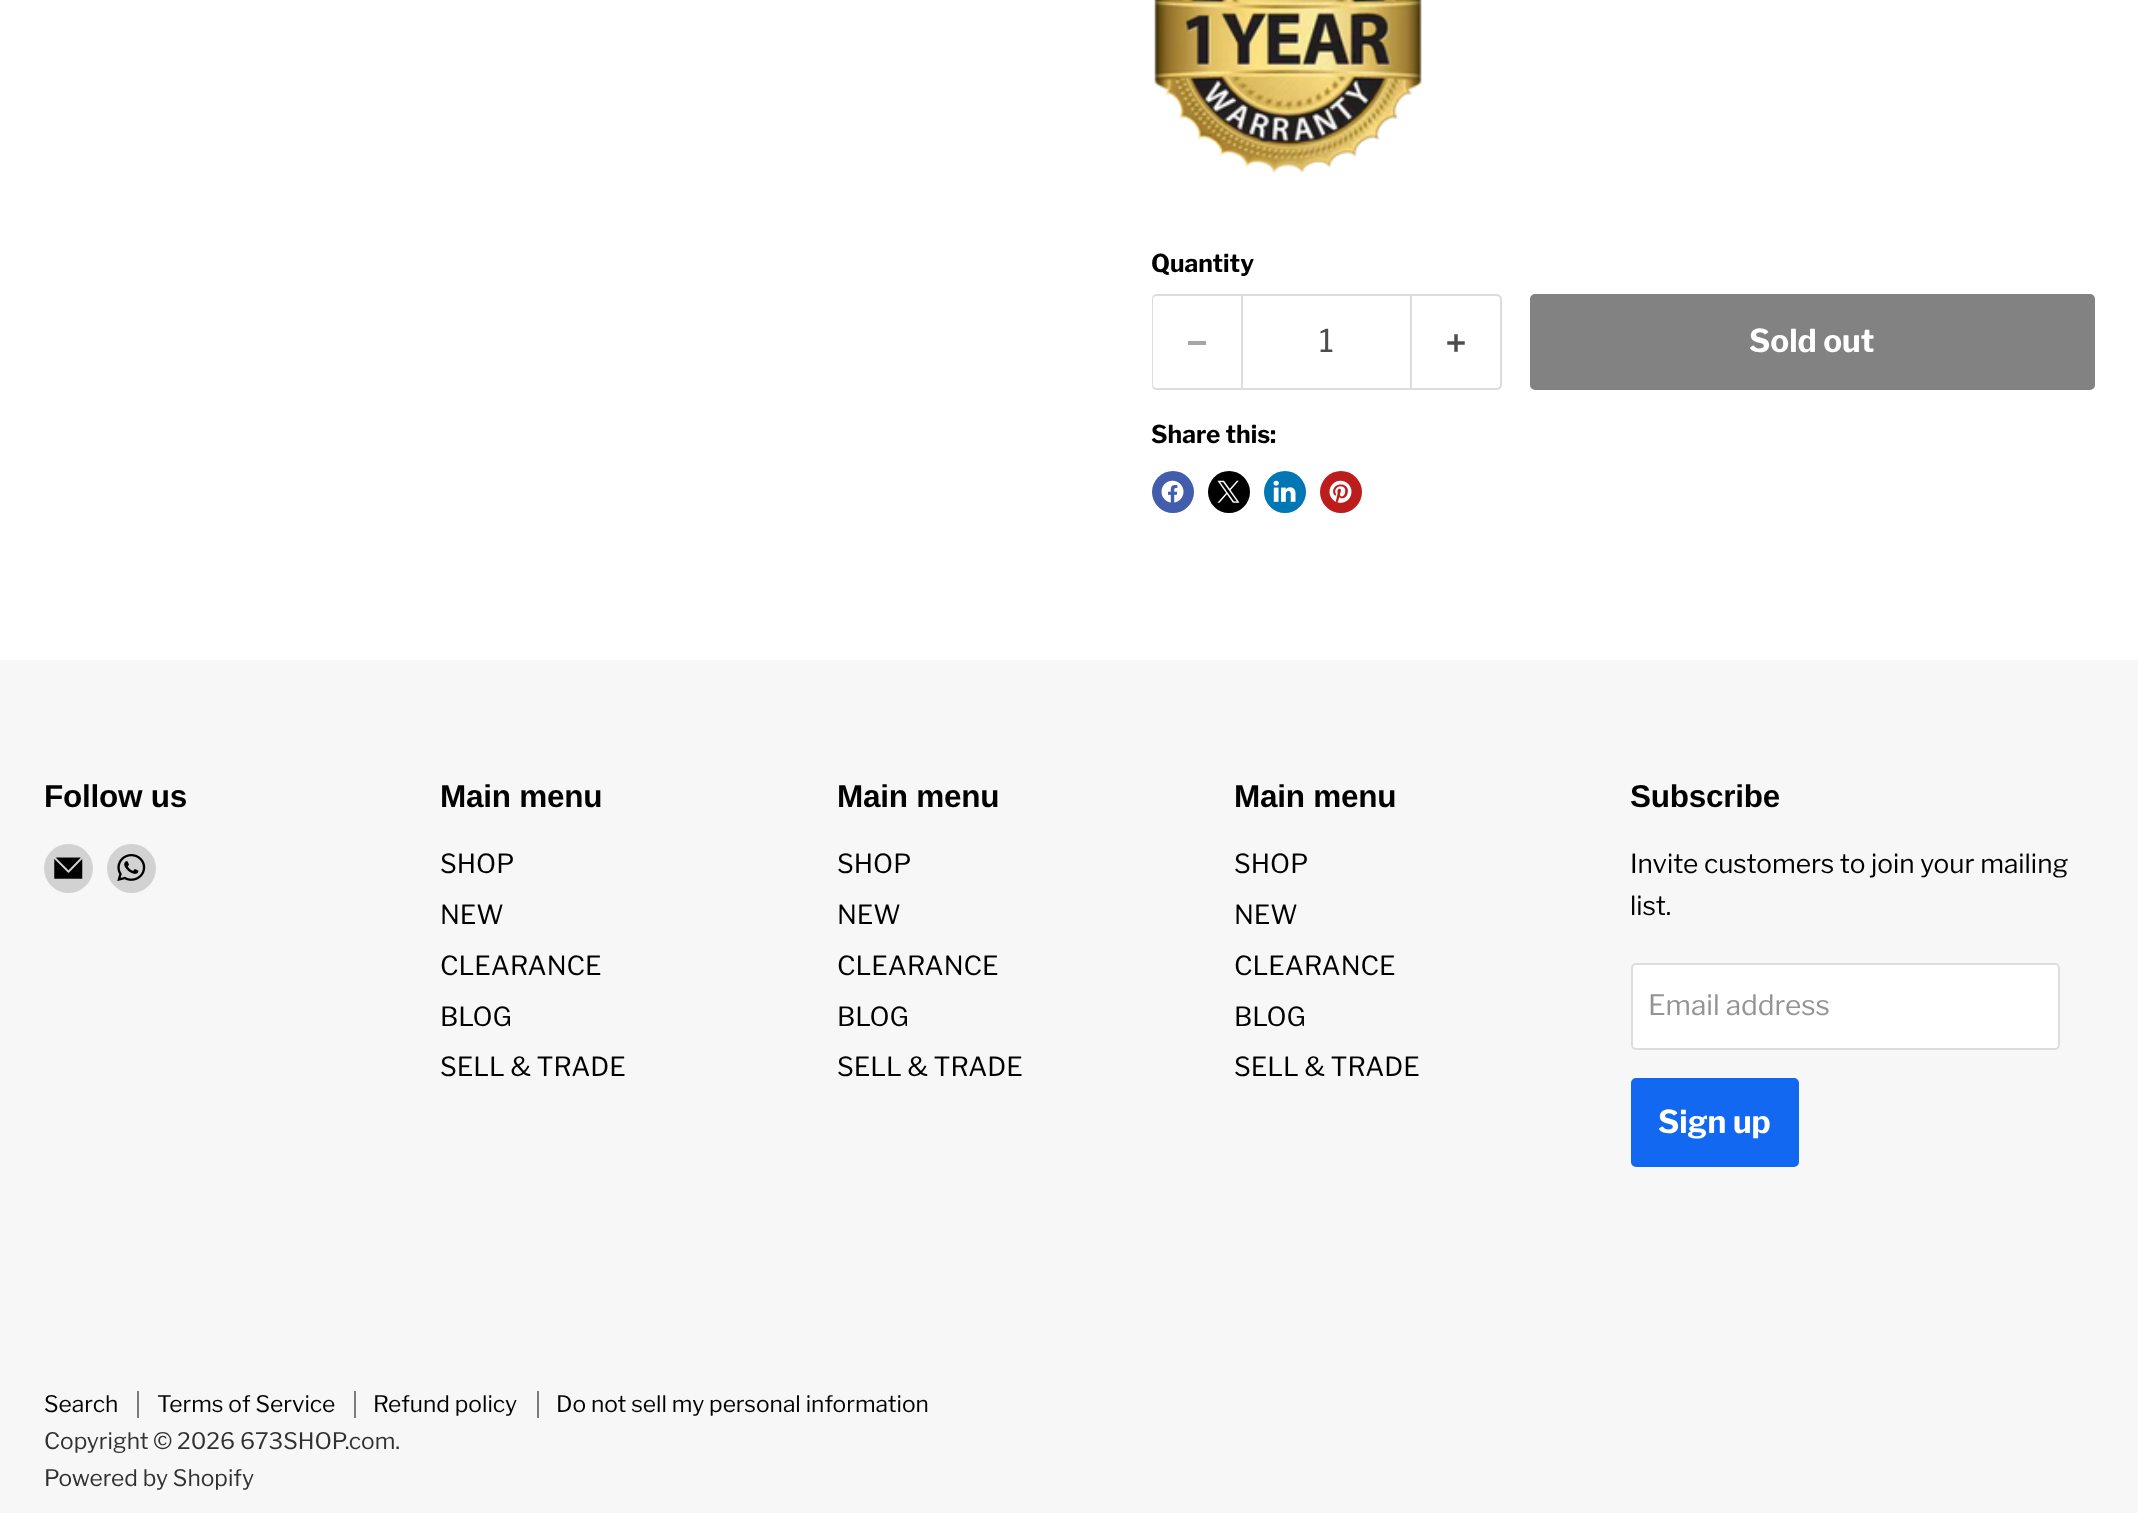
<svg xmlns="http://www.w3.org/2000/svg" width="2138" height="1513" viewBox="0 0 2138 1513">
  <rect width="100%" height="100%" fill="rgb(255,255,255)"/>
  <image x="1154" y="0" width="268" height="173" href="pic1.png"/>
  <text x="1151" y="272" font-family="Libre Franklin" font-size="24.5" font-weight="bold" fill="rgb(0,0,0)">Quantity</text>
  <path d="M1157 294H1241V390H1157C1154 390 1152 388 1152 385V299C1152 296 1154 294 1157 294ZM1157 296H1241V388H1157C1155 388 1153 387 1153 385V299C1153 297 1155 296 1157 296Z" fill="rgb(221,221,221)" fill-rule="evenodd"/>
  <rect x="1188" y="341" width="18" height="4" fill="rgb(166,166,166)"/>
  <rect x="1242" y="295" width="169" height="94" fill="none" stroke="rgb(221,221,221)" stroke-width="2"/>
  <text x="1319" y="352" font-family="Libre Franklin" font-size="31.5" fill="rgb(77,77,77)">1</text>
  <path d="M1412 294H1496C1499 294 1502 296 1502 299V385C1502 388 1499 390 1496 390H1412ZM1412 296H1496C1498 296 1500 297 1500 299V385C1500 387 1498 388 1496 388H1412Z" fill="rgb(221,221,221)" fill-rule="evenodd"/>
  <image x="1447" y="334" width="18" height="18" href="pic2.png"/>
  <rect x="1531" y="295" width="563" height="94" rx="4" fill="rgb(130,130,130)" stroke="rgb(130,130,130)" stroke-width="2"/>
  <text x="1749" y="352" font-family="Libre Franklin" font-size="31.5" font-weight="bold" fill="rgb(255,255,255)">Sold out</text>
  <text x="1151" y="443" font-family="Libre Franklin" font-size="24.5" font-weight="bold" fill="rgb(0,0,0)">Share this:</text>
  <circle cx="1173" cy="492" r="21" fill="rgb(66,93,171)"/>
  <image x="1161" y="480" width="23" height="23" href="pic3.png"/>
  <circle cx="1229" cy="492" r="21" fill="rgb(0,0,0)"/>
  <image x="1217" y="480" width="23" height="23" href="pic4.png"/>
  <circle cx="1285" cy="492" r="21" fill="rgb(0,119,181)"/>
  <image x="1273" y="480" width="23" height="22" href="pic5.png"/>
  <circle cx="1341" cy="492" r="21" fill="rgb(189,28,28)"/>
  <image x="1329" y="480" width="23" height="23" href="pic6.png"/>
  <rect x="0" y="660" width="2138" height="853" fill="rgb(247,247,247)"/>
  <text x="44" y="807" font-family="Arimo" font-size="31.5" font-weight="bold" letter-spacing="-0.25" fill="rgb(0,0,0)">Follow us</text>
  <circle cx="68.5" cy="868.5" r="24.5" fill="rgb(210,210,210)"/>
  <image x="54" y="857" width="29" height="22" href="pic7.png"/>
  <circle cx="131.5" cy="868.5" r="24.5" fill="rgb(210,210,210)"/>
  <image x="117" y="854" width="29" height="27" href="pic8.png"/>
  <text x="440" y="807" font-family="Arimo" font-size="31.5" font-weight="bold" letter-spacing="-0.25" fill="rgb(0,0,0)">Main menu</text>
  <g font-family="Libre Franklin" font-size="26.25" fill="rgb(0,0,0)">
    <text>
      <tspan x="440" y="873">SHOP</tspan>
      <tspan x="440" y="924">NEW</tspan>
      <tspan x="440" y="975">CLEARANCE</tspan>
      <tspan x="440" y="1026">BLOG</tspan>
      <tspan x="440" y="1076">SELL &amp; TRADE</tspan>
    </text>
  </g>
  <text x="837" y="807" font-family="Arimo" font-size="31.5" font-weight="bold" letter-spacing="-0.25" fill="rgb(0,0,0)">Main menu</text>
  <g font-family="Libre Franklin" font-size="26.25" fill="rgb(0,0,0)">
    <text>
      <tspan x="837" y="873">SHOP</tspan>
      <tspan x="837" y="924">NEW</tspan>
      <tspan x="837" y="975">CLEARANCE</tspan>
      <tspan x="837" y="1026">BLOG</tspan>
      <tspan x="837" y="1076">SELL &amp; TRADE</tspan>
    </text>
  </g>
  <text x="1234" y="807" font-family="Arimo" font-size="31.5" font-weight="bold" letter-spacing="-0.25" fill="rgb(0,0,0)">Main menu</text>
  <g font-family="Libre Franklin" font-size="26.25" fill="rgb(0,0,0)">
    <text>
      <tspan x="1234" y="873">SHOP</tspan>
      <tspan x="1234" y="924">NEW</tspan>
      <tspan x="1234" y="975">CLEARANCE</tspan>
      <tspan x="1234" y="1026">BLOG</tspan>
      <tspan x="1234" y="1076">SELL &amp; TRADE</tspan>
    </text>
  </g>
  <text x="1630" y="807" font-family="Arimo" font-size="31.5" font-weight="bold" letter-spacing="-0.25" fill="rgb(0,0,0)">Subscribe</text>
  <g font-family="Libre Franklin" font-size="26.25" fill="rgb(0,0,0)">
    <text>
      <tspan x="1630" y="873">Invite customers to join your mailing</tspan>
      <tspan x="1630" y="915">list.</tspan>
    </text>
  </g>
  <rect x="1632" y="964" width="427" height="85" rx="4" fill="rgb(255,255,255)" stroke="rgb(221,221,221)" stroke-width="2"/>
  <text x="1648" y="1015" font-family="Libre Franklin" font-size="28" fill="rgb(148,148,148)">Email address</text>
  <rect x="1632" y="1079" width="166" height="87" rx="4" fill="rgb(18,104,241)" stroke="rgb(18,104,241)" stroke-width="2"/>
  <text x="1658" y="1133" font-family="Libre Franklin" font-size="31.5" font-weight="bold" fill="rgb(255,255,255)">Sign up</text>
  <rect x="137" y="1391" width="2" height="27" fill="rgb(124,124,124)"/>
  <text x="44" y="1412" font-family="Libre Franklin" font-size="22.75" fill="rgb(0,0,0)">Search</text>
  <rect x="354" y="1391" width="2" height="27" fill="rgb(124,124,124)"/>
  <text x="157" y="1412" font-family="Libre Franklin" font-size="22.75" fill="rgb(0,0,0)">Terms of Service</text>
  <rect x="537" y="1391" width="2" height="27" fill="rgb(124,124,124)"/>
  <g font-family="Libre Franklin" font-size="22.75" fill="rgb(0,0,0)">
    <text x="373" y="1412">Refund policy</text>
    <text x="556" y="1412">Do not sell my personal information</text>
  </g>
  <g font-family="Libre Franklin" font-size="22.75" fill="rgb(49,49,49)">
    <text>
      <tspan x="44" y="1449">Copyright © 2026 673SHOP.com.</tspan>
      <tspan x="44" y="1486">Powered by Shopify</tspan>
    </text>
  </g>
</svg>
